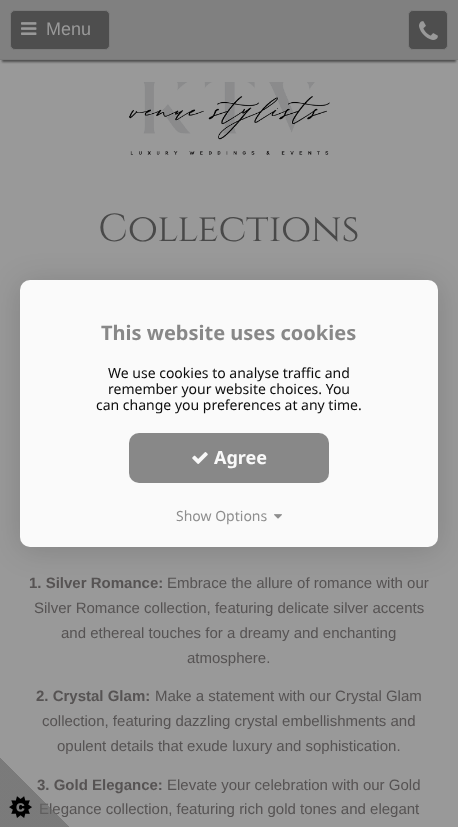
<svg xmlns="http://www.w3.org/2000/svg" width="458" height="827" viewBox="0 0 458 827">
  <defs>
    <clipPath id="clip1"><path d="M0 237H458V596H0ZM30 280H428C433.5 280 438 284.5 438 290V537C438 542.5 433.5 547 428 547H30C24.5 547 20 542.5 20 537V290C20 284.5 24.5 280 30 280Z" clip-rule="evenodd"/></clipPath>
    <linearGradient id="g1" gradientUnits="userSpaceOnUse" x1="70" y1="757" x2="0" y2="827"><stop offset="0.5" stop-color="rgb(102,102,102)" stop-opacity="0"/><stop offset="0.5" stop-color="rgb(102,102,102)" stop-opacity="0.6"/></linearGradient>
  </defs>
  <rect width="100%" height="100%" fill="rgb(153,153,153)"/>
  <rect x="2" y="6" width="454" height="56" fill="rgb(77,77,77)" filter="blur(1px)"/>
  <rect x="0" y="0" width="458" height="59" fill="rgb(128,128,128)"/>
  <rect x="0" y="59" width="458" height="1" fill="rgb(122,122,122)"/>
  <rect x="10.5" y="10.5" width="99" height="39" rx="4.5" fill="rgb(78,78,78)" stroke="rgb(122,122,122)"/>
  <image x="21" y="22" width="16" height="13" href="pic1.png"/>
  <text x="46" y="35" font-family="Liberation Sans" font-size="18" fill="rgb(153,153,153)">Menu</text>
  <rect x="408.5" y="10.5" width="39" height="39" rx="4.5" fill="rgb(78,78,78)" stroke="rgb(122,122,122)"/>
  <image x="419" y="21" width="19" height="19" href="pic2.png"/>
  <image x="129" y="82" width="201" height="73" href="pic3.png"/>
  <text x="98" y="241" font-family="Cinzel" font-size="39" fill="rgb(73,73,73)">Collections</text>
  <text x="29" y="588" font-family="Liberation Sans" font-size="15" font-weight="bold" fill="rgb(86,83,83)">1. Silver Romance:</text>
  <g font-family="Liberation Sans" font-size="15" fill="rgb(86,83,83)">
    <text x="167" y="588">Embrace the allure of romance with our</text>
    <text x="34" y="613">Silver Romance collection, featuring delicate silver accents</text>
    <text x="61" y="638">and ethereal touches for a dreamy and enchanting</text>
    <text x="187" y="663">atmosphere.</text>
  </g>
  <text x="36" y="701" font-family="Liberation Sans" font-size="15" font-weight="bold" fill="rgb(86,83,83)">2. Crystal Glam:</text>
  <g font-family="Liberation Sans" font-size="15" fill="rgb(86,83,83)">
    <text x="155" y="701">Make a statement with our Crystal Glam</text>
    <text x="42" y="726">collection, featuring dazzling crystal embellishments and</text>
    <text x="57" y="751">opulent details that exude luxury and sophistication.</text>
  </g>
  <text x="37" y="790" font-family="Liberation Sans" font-size="15" font-weight="bold" fill="rgb(86,83,83)">3. Gold Elegance:</text>
  <g font-family="Liberation Sans" font-size="15" fill="rgb(86,83,83)">
    <text x="167" y="790">Elevate your celebration with our Gold</text>
    <text x="39" y="814">Elegance collection, featuring rich gold tones and elegant</text>
  </g>
  <g clip-path="url(#clip1)">
    <rect x="20" y="283" width="418" height="267" rx="10" fill="rgba(0,0,0,0.15)" filter="blur(15px)"/>
  </g>
  <rect x="20" y="280" width="418" height="267" rx="10" fill="rgba(255,255,255,0.95)"/>
  <text x="101" y="340" font-family="Noto Sans" font-size="20" font-weight="bold" fill="rgb(136,136,136)">This website uses cookies</text>
  <g font-family="Noto Sans" font-size="14" fill="rgb(12,12,12)">
    <text>
      <tspan x="108" y="378">We use cookies to analyse traffic and</tspan>
      <tspan x="108" y="394">remember your website choices. You</tspan>
    </text>
    <text x="96" y="410">can change you preferences at any time.</text>
  </g>
  <rect x="129" y="433" width="200" height="50" rx="10" fill="rgba(130,130,130,0.95)"/>
  <image x="192" y="452" width="16" height="12" href="pic4.png"/>
  <text x="214" y="464" font-family="Noto Sans" font-size="18" font-weight="bold" fill="rgb(249,249,249)">Agree</text>
  <text x="176" y="521" font-family="Noto Sans" font-size="14" fill="rgb(142,142,142)">Show Options</text>
  <image x="274" y="514" width="8" height="5" href="pic5.png"/>
  <rect x="0" y="757" width="70" height="70" fill="url(#g1)"/>
  <image x="9" y="796" width="23" height="22" href="pic6.png"/>
</svg>
